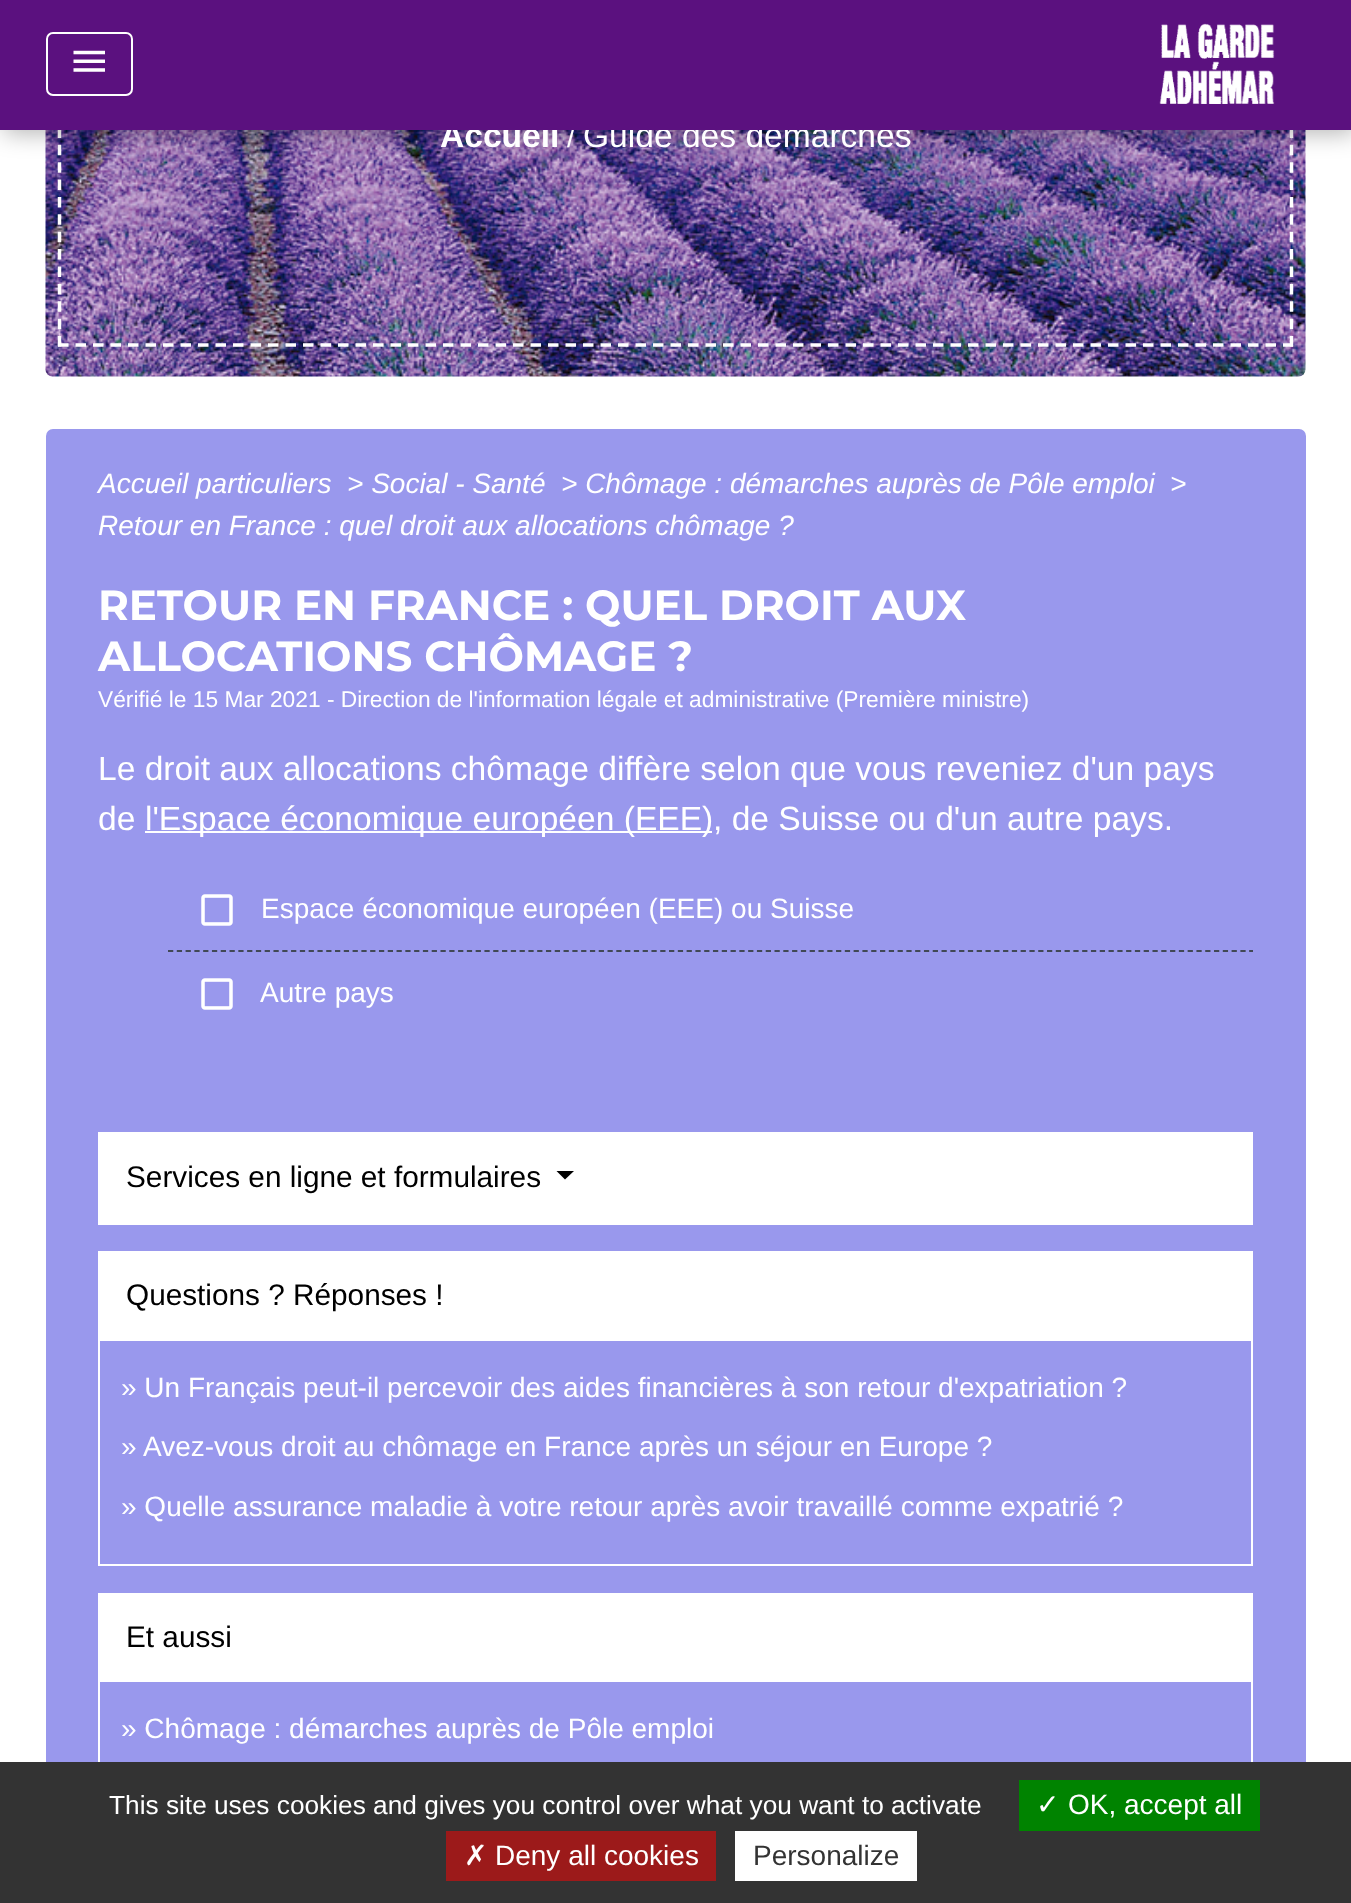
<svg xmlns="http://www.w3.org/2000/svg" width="1351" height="1903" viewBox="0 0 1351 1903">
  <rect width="100%" height="100%" fill="rgb(255,255,255)"/>
  <image x="45" y="130" width="1261" height="247" href="pic3.png"/>
  <path d="M1291.5-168V346.5" fill="none" stroke="rgb(255,255,255)" stroke-width="3.5" stroke-dasharray="10.5 6.88"/>
  <path d="M58 345H1293" fill="none" stroke="rgb(255,255,255)" stroke-width="3.5" stroke-dasharray="10.5 7"/>
  <path d="M59.5-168V346.5" fill="none" stroke="rgb(255,255,255)" stroke-width="3.5" stroke-dasharray="10.5 6.88"/>
  <rect x="4" y="4" width="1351" height="129" fill="rgba(0,0,0,0.3)" filter="blur(11.5px)"/>
  <text x="440" y="147" font-family="Liberation Sans" font-size="33.6" font-weight="bold" fill="rgb(255,255,255)">Accueil</text>
  <text x="567" y="147" font-family="Liberation Sans" font-size="28" fill="rgb(255,255,255)">/</text>
  <text x="583" y="147" font-family="Liberation Sans" font-size="33.6" fill="rgb(255,255,255)">Guide des démarches</text>
  <rect x="0" y="0" width="1351" height="130" fill="rgb(91,17,127)"/>
  <rect x="47" y="33" width="85" height="62" rx="6" fill="none" stroke="rgb(255,255,255)" stroke-width="2"/>
  <image x="73" y="50" width="32" height="22" href="pic1.png"/>
  <image x="1159" y="23" width="116" height="81" href="pic2.png"/>
  <rect x="46" y="429" width="1260" height="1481" rx="7" fill="rgb(153,152,237)"/>
  <g font-family="Liberation Sans" font-size="28" font-style="italic" fill="rgb(255,255,255)">
    <text x="98" y="493">Accueil particuliers</text>
    <text x="347" y="493">&gt; Social - Santé</text>
    <text x="561" y="493">&gt; Chômage : démarches auprès de Pôle emploi</text>
    <text x="1170" y="493">&gt;</text>
    <text x="98" y="535">Retour en France : quel droit aux allocations chômage ?</text>
  </g>
  <g font-family="Montserrat" font-size="42" font-weight="bold" fill="rgb(255,255,255)">
    <text>
      <tspan x="98" y="620">RETOUR EN FRANCE : QUEL DROIT AUX</tspan>
      <tspan x="98" y="671">ALLOCATIONS CHÔMAGE ?</tspan>
    </text>
  </g>
  <text x="98" y="707" font-family="Liberation Sans" font-size="22.75" fill="rgb(255,255,255)">Vérifié le 15 Mar 2021 - Direction de l'information légale et administrative (Première ministre)</text>
  <g font-family="Liberation Sans" font-size="33.6" fill="rgb(255,255,255)">
    <text>
      <tspan x="98" y="780">Le droit aux allocations chômage diffère selon que vous reveniez d'un pays</tspan>
      <tspan x="98" y="830">de</tspan>
    </text>
  </g>
  <rect x="145" y="831" width="567" height="2" fill="rgb(255,255,255)"/>
  <g font-family="Liberation Sans" font-size="33.6" fill="rgb(255,255,255)">
    <text x="145" y="830">l'Espace économique européen (EEE)</text>
    <text x="713" y="830">, de Suisse ou d'un autre pays.</text>
  </g>
  <image x="201" y="894" width="32" height="32" href="pic4.png"/>
  <text x="261" y="918" font-family="Liberation Sans" font-size="28" fill="rgb(255,255,255)">Espace économique européen (EEE) ou Suisse</text>
  <path d="M168 951H1253" fill="none" stroke="rgb(65,72,86)" stroke-width="1.8" stroke-dasharray="5.25 3.54"/>
  <image x="201" y="978" width="32" height="32" href="pic4.png"/>
  <text x="260" y="1002" font-family="Liberation Sans" font-size="28" fill="rgb(255,255,255)">Autre pays</text>
  <rect x="99" y="1133" width="1153" height="91" fill="none" stroke="rgb(255,255,255)" stroke-width="2"/>
  <rect x="100" y="1134" width="1151" height="89" fill="rgb(255,255,255)"/>
  <text x="126" y="1187" font-family="Liberation Sans" font-size="29.75" fill="rgb(0,0,0)">Services en ligne et formulaires</text>
  <path d="M556.5 1171H574L565 1179.5Z" fill="rgb(0,0,0)"/>
  <rect x="99" y="1252" width="1153" height="313" fill="none" stroke="rgb(255,255,255)" stroke-width="2"/>
  <rect x="100" y="1253" width="1151" height="88" fill="rgb(255,255,255)"/>
  <text x="126" y="1305" font-family="Liberation Sans" font-size="29.75" fill="rgb(0,0,0)">Questions ? Réponses !</text>
  <g font-family="Liberation Sans" font-size="28" fill="rgb(255,255,255)">
    <text x="121" y="1397">» Un Français peut-il percevoir des aides financières à son retour d'expatriation ?</text>
    <text x="121" y="1456">»</text>
    <text x="143" y="1456">Avez-vous droit au chômage en France après un séjour en Europe ?</text>
    <text x="121" y="1516">» Quelle assurance maladie à votre retour après avoir travaillé comme expatrié ?</text>
  </g>
  <rect x="99" y="1594" width="1153" height="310" fill="none" stroke="rgb(255,255,255)" stroke-width="2"/>
  <rect x="100" y="1595" width="1151" height="87" fill="rgb(255,255,255)"/>
  <text x="126" y="1647" font-family="Liberation Sans" font-size="29.75" fill="rgb(0,0,0)">Et aussi</text>
  <text x="121" y="1738" font-family="Liberation Sans" font-size="28" fill="rgb(255,255,255)">» Chômage : démarches auprès de Pôle emploi</text>
  <rect x="0" y="1762" width="1351" height="141" fill="rgb(51,51,51)"/>
  <text x="109" y="1814" font-family="Liberation Sans" font-size="26.25" fill="rgb(255,255,255)">This site uses cookies and gives you control over what you want to activate</text>
  <rect x="1019" y="1780" width="241" height="51" fill="rgb(0,131,0)"/>
  <text x="1036" y="1814" font-family="DejaVu Sans" font-size="28" fill="rgb(255,255,255)">✓</text>
  <text x="1068" y="1814" font-family="Liberation Sans" font-size="28" fill="rgb(255,255,255)">OK, accept all</text>
  <rect x="446" y="1831" width="270" height="50" fill="rgb(156,26,26)"/>
  <text x="464" y="1865" font-family="DejaVu Sans" font-size="28" fill="rgb(255,255,255)">✗</text>
  <text x="495" y="1865" font-family="Liberation Sans" font-size="28" fill="rgb(255,255,255)">Deny all cookies</text>
  <rect x="735" y="1831" width="182" height="50" fill="rgb(255,255,255)"/>
  <text x="753" y="1865" font-family="Liberation Sans" font-size="28" fill="rgb(51,51,51)">Personalize</text>
</svg>
